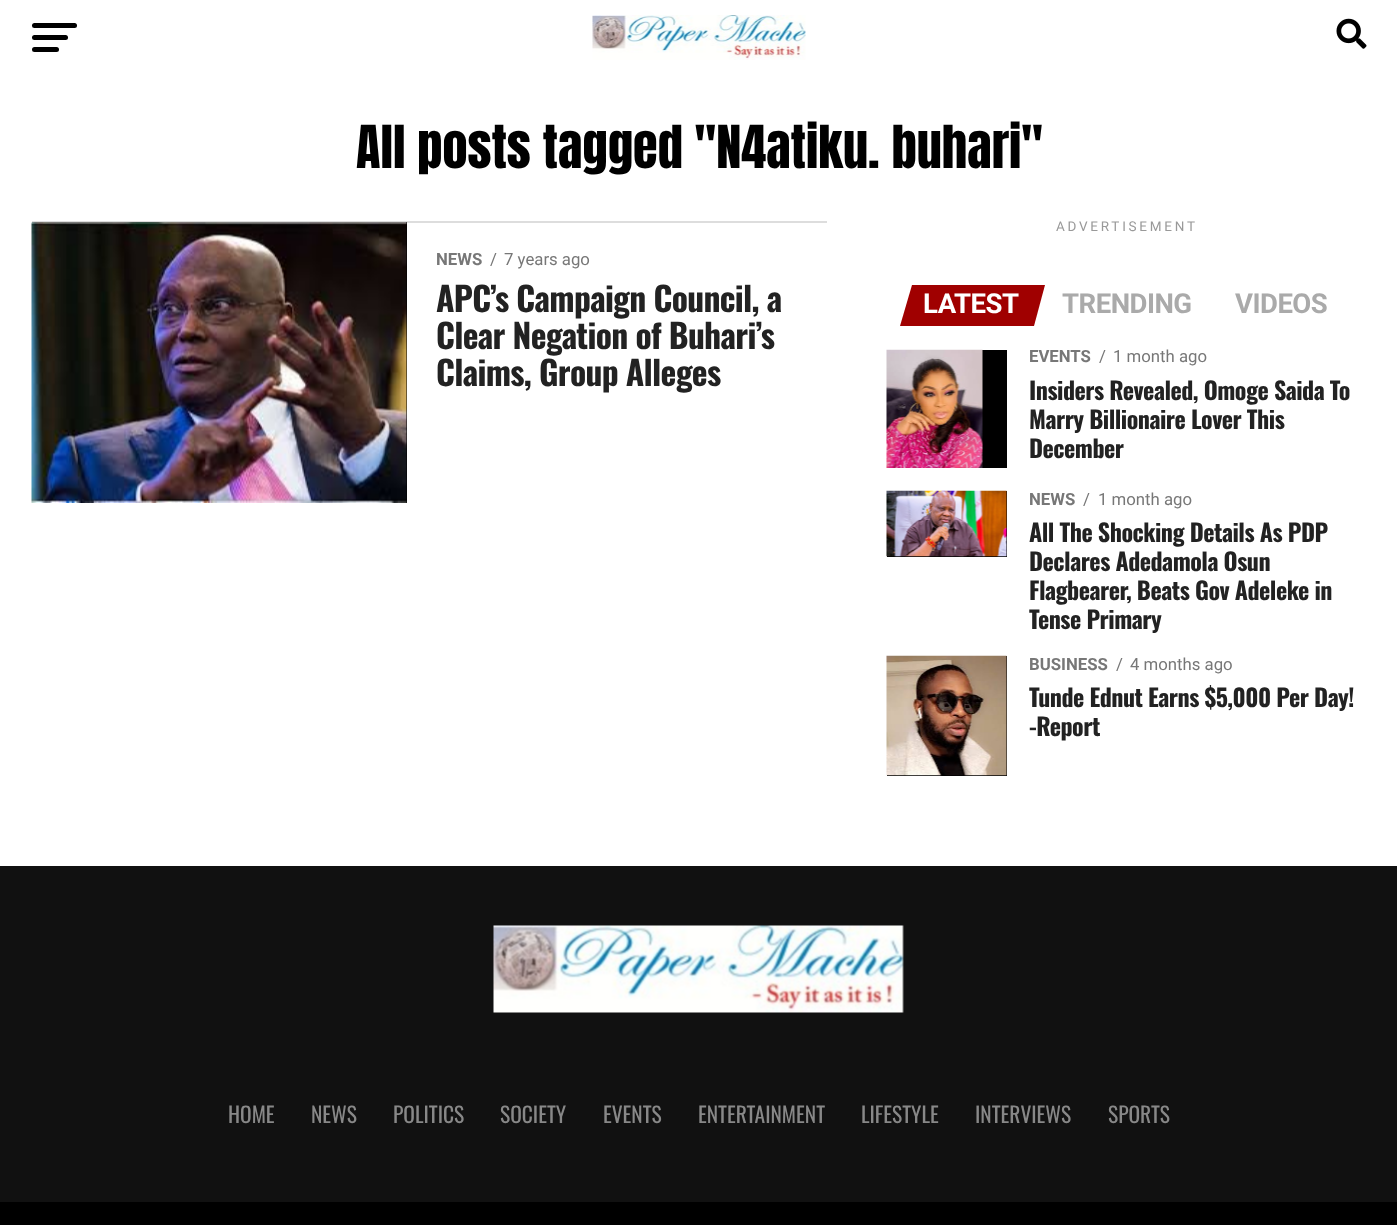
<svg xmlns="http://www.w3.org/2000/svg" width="1397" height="1225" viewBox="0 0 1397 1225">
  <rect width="100%" height="100%" fill="rgb(255,255,255)"/>
  <rect x="32" y="23" width="45" height="5" rx="2.5" fill="rgb(0,0,0)"/>
  <rect x="32" y="35" width="36" height="5" rx="2.5" fill="rgb(0,0,0)"/>
  <rect x="32" y="47" width="27" height="5" rx="2.5" fill="rgb(0,0,0)"/>
  <image x="592" y="15" width="214" height="45" href="pic1.png"/>
  <image x="1336" y="18" width="31" height="31" href="pic2.png"/>
  <text x="356" y="168" font-family="Anton" font-size="50.4" fill="rgb(0,0,0)">All posts tagged "N4atiku. buhari"</text>
  <rect x="32" y="221" width="795" height="2" fill="rgb(221,221,221)"/>
  <rect x="32" y="222" width="375" height="281" fill="rgb(0,0,0)"/>
  <image x="31" y="222" width="376" height="281" href="pic3.png"/>
  <text x="436" y="265" font-family="Roboto" font-size="16.75" font-weight="bold" fill="rgb(119,119,119)">NEWS</text>
  <g font-family="Roboto" font-size="16.75" fill="rgb(119,119,119)">
    <text x="490" y="265">/</text>
    <text x="504" y="265">7 years ago</text>
  </g>
  <g font-family="Oswald" font-size="33.6" font-weight="bold" letter-spacing="-0.7" fill="rgb(34,34,34)">
    <text>
      <tspan x="436" y="312">APC’s Campaign Council, a</tspan>
      <tspan x="436" y="349">Clear Negation of Buhari’s</tspan>
      <tspan x="436" y="386">Claims, Group Alleges</tspan>
    </text>
  </g>
  <text x="1056" y="231" font-family="Roboto" font-size="13.5" letter-spacing="2.75" fill="rgb(153,153,153)">ADVERTISEMENT</text>
  <path d="M912 285H1045L1034 326H900Z" fill="rgb(160,0,0)"/>
  <text x="923" y="313" font-family="Roboto" font-size="27.5" font-weight="bold" letter-spacing="-0.5" fill="rgb(255,255,255)">LATEST</text>
  <g font-family="Roboto" font-size="27.5" font-weight="bold" letter-spacing="-0.5" fill="rgb(170,170,170)">
    <text x="1062" y="313">TRENDING</text>
    <text x="1235" y="313">VIDEOS</text>
  </g>
  <rect x="982" y="350" width="25" height="118" fill="rgb(0,0,0)"/>
  <image x="886" y="349" width="97" height="119" href="pic4.png"/>
  <text x="1029" y="362" font-family="Roboto" font-size="16.75" font-weight="bold" fill="rgb(119,119,119)">EVENTS</text>
  <g font-family="Roboto" font-size="16.75" fill="rgb(119,119,119)">
    <text x="1099" y="362">/</text>
    <text x="1113" y="362">1 month ago</text>
  </g>
  <g font-family="Oswald" font-size="24" font-weight="bold" letter-spacing="-0.5" fill="rgb(34,34,34)">
    <text>
      <tspan x="1029" y="400">Insiders Revealed, Omoge Saida To</tspan>
      <tspan x="1029" y="429">Marry Billionaire Lover This</tspan>
      <tspan x="1029" y="458">December</tspan>
    </text>
  </g>
  <rect x="887" y="491" width="120" height="66" fill="rgb(0,0,0)"/>
  <image x="886" y="490" width="121" height="67" href="pic5.png"/>
  <text x="1029" y="505" font-family="Roboto" font-size="16.75" font-weight="bold" fill="rgb(119,119,119)">NEWS</text>
  <g font-family="Roboto" font-size="16.75" fill="rgb(119,119,119)">
    <text x="1083" y="505">/</text>
    <text x="1098" y="505">1 month ago</text>
  </g>
  <g font-family="Oswald" font-size="24" font-weight="bold" letter-spacing="-0.5" fill="rgb(34,34,34)">
    <text>
      <tspan x="1029" y="542">All The Shocking Details As PDP</tspan>
      <tspan x="1029" y="571">Declares Adedamola Osun</tspan>
      <tspan x="1029" y="600">Flagbearer, Beats Gov Adeleke in</tspan>
      <tspan x="1029" y="629">Tense Primary</tspan>
    </text>
  </g>
  <rect x="887" y="656" width="120" height="120" fill="rgb(0,0,0)"/>
  <image x="886" y="655" width="121" height="121" href="pic6.png"/>
  <text x="1029" y="670" font-family="Roboto" font-size="16.75" font-weight="bold" fill="rgb(119,119,119)">BUSINESS</text>
  <g font-family="Roboto" font-size="16.75" fill="rgb(119,119,119)">
    <text x="1116" y="670">/</text>
    <text x="1130" y="670">4 months ago</text>
  </g>
  <g font-family="Oswald" font-size="24" font-weight="bold" letter-spacing="-0.5" fill="rgb(34,34,34)">
    <text>
      <tspan x="1029" y="707">Tunde Ednut Earns $5,000 Per Day!</tspan>
      <tspan x="1029" y="736">-Report</tspan>
    </text>
  </g>
  <rect x="0" y="866" width="1397" height="336" fill="rgb(17,17,17)"/>
  <image x="493" y="925" width="411" height="88" href="pic7.png"/>
  <g font-family="Oswald" font-size="21.5" fill="rgb(136,136,136)">
    <text x="228" y="1123">HOME</text>
    <text x="311" y="1123">NEWS</text>
    <text x="393" y="1123">POLITICS</text>
    <text x="500" y="1123">SOCIETY</text>
    <text x="603" y="1123">EVENTS</text>
    <text x="698" y="1123">ENTERTAINMENT</text>
    <text x="861" y="1123">LIFESTYLE</text>
    <text x="975" y="1123">INTERVIEWS</text>
    <text x="1108" y="1123">SPORTS</text>
  </g>
  <rect x="0" y="1202" width="1397" height="23" fill="rgb(0,0,0)"/>
</svg>
